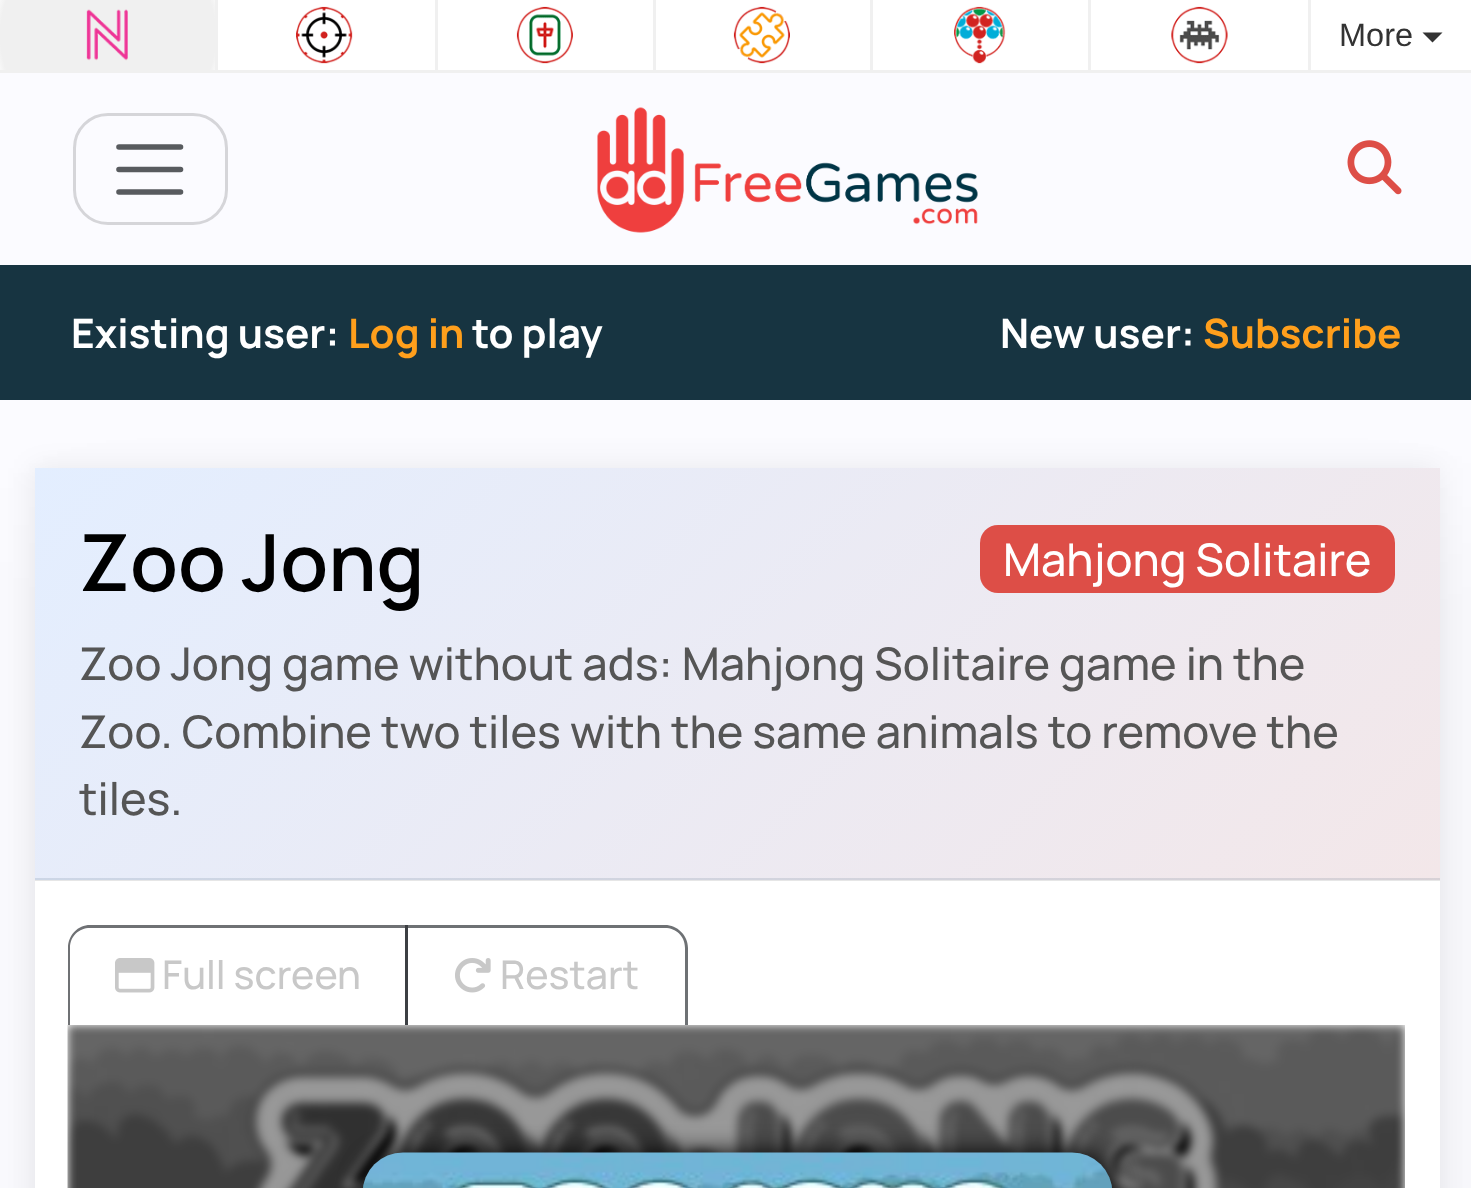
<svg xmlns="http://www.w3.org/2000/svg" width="1471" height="1188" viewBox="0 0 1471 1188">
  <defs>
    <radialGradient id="g1" gradientUnits="userSpaceOnUse" cx="108" cy="35" r="1076"><stop offset="0.1" stop-color="rgb(240,240,240)"/><stop offset="0.11" stop-color="rgb(255,255,255)"/></radialGradient>
    <linearGradient id="g2" gradientUnits="userSpaceOnUse" x1="1191" y1="1126" x2="284" y2="219"><stop offset="0" stop-color="rgb(243,231,233)"/><stop offset="1" stop-color="rgb(227,238,255)"/></linearGradient>
    <linearGradient id="g3" gradientUnits="userSpaceOnUse" x1="1191" y1="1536" x2="284" y2="629"><stop offset="0" stop-color="rgb(219,208,210)"/><stop offset="1" stop-color="rgb(204,214,230)"/></linearGradient>
  </defs>
  <rect width="100%" height="100%" fill="rgb(251,251,255)"/>
  <rect x="218" y="0" width="1253" height="70" fill="rgb(255,255,255)"/>
  <rect x="0" y="70" width="1471" height="3" fill="rgb(240,240,240)"/>
  <rect x="0" y="0" width="215" height="70" fill="url(#g1)"/>
  <image x="86" y="9" width="42" height="52" href="pic1.png"/>
  <rect x="215" y="0" width="3" height="70" fill="rgb(240,240,240)"/>
  <image x="296" y="6" width="57" height="58" href="pic2.png"/>
  <rect x="435" y="0" width="3" height="70" fill="rgb(240,240,240)"/>
  <image x="516" y="6" width="57" height="58" href="pic3.png"/>
  <rect x="653" y="0" width="3" height="70" fill="rgb(240,240,240)"/>
  <image x="733" y="6" width="57" height="58" href="pic4.png"/>
  <rect x="870" y="0" width="3" height="70" fill="rgb(240,240,240)"/>
  <image x="954" y="6" width="52" height="58" href="pic5.png"/>
  <rect x="1088" y="0" width="3" height="70" fill="rgb(240,240,240)"/>
  <image x="1171" y="6" width="57" height="58" href="pic6.png"/>
  <rect x="1308" y="0" width="3" height="70" fill="rgb(240,240,240)"/>
  <text x="1339" y="46" font-family="Liberation Sans" font-size="32.5" fill="rgb(51,51,51)">More</text>
  <path d="M1422.5 32.5H1442.5L1432.5 42.5Z" fill="rgb(51,51,51)"/>
  <rect x="74.5" y="114.5" width="152" height="109" rx="33.5" fill="none" stroke="rgb(213,213,217)" stroke-width="3"/>
  <path d="M119 147H180.5M119 169.5H180.5M119 192H180.5" fill="none" stroke="rgb(88,91,95)" stroke-width="5.6" stroke-linecap="round"/>
  <image x="597" y="107" width="381" height="126" href="pic7.png"/>
  <image x="1347" y="140" width="55" height="55" href="pic8.png"/>
  <rect x="0" y="265" width="1471" height="135" fill="rgb(23,52,65)"/>
  <rect x="50" y="525" width="1405" height="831" fill="rgba(0,0,0,0.04)" filter="blur(56px)"/>
  <text x="71" y="348" font-family="Manrope" font-size="40.5" font-weight="bold" fill="rgb(255,255,255)">Existing user:</text>
  <text x="348" y="348" font-family="Manrope" font-size="40.5" font-weight="bold" fill="rgb(255,159,28)">Log in</text>
  <g font-family="Manrope" font-size="40.5" font-weight="bold" fill="rgb(255,255,255)">
    <text x="472" y="348">to play</text>
    <text x="1000" y="348">New user:</text>
  </g>
  <text x="1203" y="348" font-family="Manrope" font-size="40.5" font-weight="bold" fill="rgb(255,159,28)">Subscribe</text>
  <rect x="33" y="468" width="1405" height="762" fill="rgba(0,0,0,0.07)" filter="blur(14px)"/>
  <rect x="35" y="881" width="1405" height="307" fill="rgb(255,255,255)"/>
  <rect x="35" y="880" width="1405" height="1" fill="rgb(230,230,230)"/>
  <rect x="35" y="468" width="1405" height="410" fill="url(#g2)"/>
  <rect x="35" y="878" width="1405" height="2" fill="url(#g3)"/>
  <text x="79" y="591" font-family="Manrope" font-size="78.75" font-weight="600" fill="rgb(0,0,0)">Zoo Jong</text>
  <rect x="980" y="525" width="415" height="68" rx="18" fill="rgb(221,78,71)"/>
  <text x="1003" y="576" font-family="Manrope" font-size="45" font-weight="500" fill="rgb(255,255,255)">Mahjong Solitaire</text>
  <g font-family="Manrope" font-size="45" font-weight="500" fill="rgb(85,85,85)">
    <text>
      <tspan x="79" y="680">Zoo Jong game without ads: Mahjong Solitaire game in the</tspan>
      <tspan x="79" y="748">Zoo. Combine two tiles with the same animals to remove the</tspan>
      <tspan x="79" y="815">tiles.</tspan>
    </text>
  </g>
  <path d="M90 925H408V1025H68V948C68 935 78 925 90 925ZM90 928H405V1025H70V948C70 936 79 928 90 928Z" fill="rgb(111,113,116)" fill-rule="evenodd"/>
  <image x="115" y="958" width="40" height="35" href="pic9.png"/>
  <text x="162" y="989" font-family="Manrope" font-size="39.5" font-weight="500" fill="rgb(200,200,200)">Full screen</text>
  <path d="M405 925H665C677 925 688 935 688 948V1025H405ZM408 928H665C676 928 685 936 685 948V1025H408Z" fill="rgba(33,37,41,0.65)" fill-rule="evenodd"/>
  <image x="455" y="958" width="36" height="35" href="pic10.png"/>
  <text x="500" y="989" font-family="Manrope" font-size="39.5" font-weight="500" fill="rgb(200,200,200)">Restart</text>
  <image x="67" y="1025" width="1338" height="163" href="pic11.png"/>
  <rect x="363" y="1153" width="750" height="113" rx="40" fill="rgb(0,0,0)" filter="blur(12.5px)"/>
  <image x="363" y="1152" width="749" height="36" href="pic12.png"/>
</svg>
